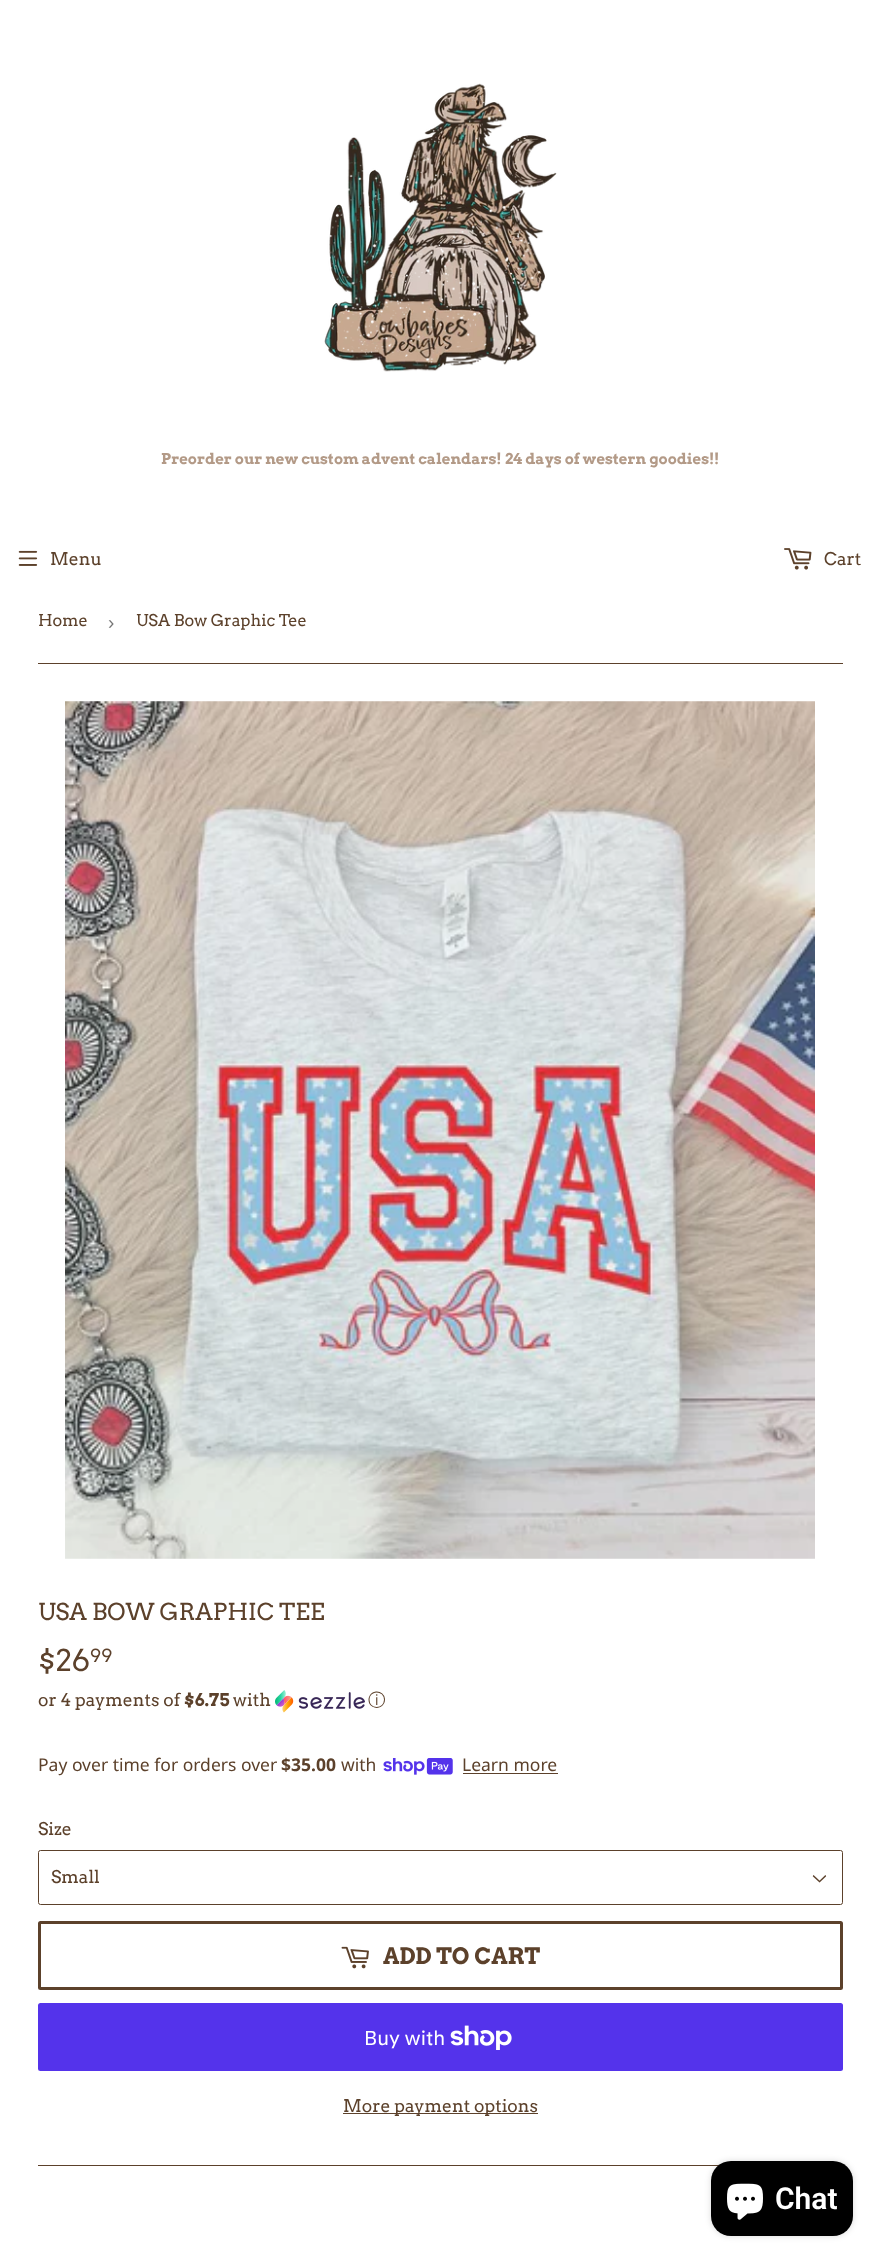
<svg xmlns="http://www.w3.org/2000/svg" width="879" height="2262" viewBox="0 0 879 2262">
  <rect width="100%" height="100%" fill="rgb(255,255,255)"/>
  <image x="324" y="83" width="233" height="289" href="pic1.png"/>
  <text x="161" y="464" font-family="Arvo" font-size="14.9" font-weight="bold" fill="rgb(179,154,135)">Preorder our new custom advent calendars! 24 days of western goodies!!</text>
  <image x="18" y="550" width="20" height="16" href="pic2.png"/>
  <text x="50" y="565" font-family="Arvo" font-size="17.5" fill="rgb(92,65,43)">Menu</text>
  <image x="784" y="548" width="28" height="22" href="pic3.png"/>
  <text x="824" y="565" font-family="Arvo" font-size="17.5" fill="rgb(92,65,43)">Cart</text>
  <rect x="38" y="663" width="805" height="1" fill="rgb(92,65,43)"/>
  <text x="38" y="626" font-family="Arvo" font-size="16.25" fill="rgb(92,65,43)">Home</text>
  <text x="108" y="629" font-family="Liberation Sans" font-size="19" fill="rgb(118,118,118)">›</text>
  <text x="136" y="626" font-family="Arvo" font-size="16.25" fill="rgb(92,65,43)">USA Bow Graphic Tee</text>
  <image x="65" y="701" width="750" height="858" href="pic4.png"/>
  <text x="38" y="1620" font-family="Arvo" font-size="23.25" fill="rgb(92,65,43)">USA BOW GRAPHIC TEE</text>
  <text x="38" y="1671" font-family="Arvo" font-size="30" fill="rgb(92,65,43)">$26</text>
  <text x="90" y="1662" font-family="Arvo" font-size="18" fill="rgb(92,65,43)">99</text>
  <text x="38" y="1706" font-family="Arvo" font-size="17.5" fill="rgb(92,65,43)">or 4 payments of</text>
  <text x="184" y="1706" font-family="Arvo" font-size="17.5" font-weight="bold" fill="rgb(92,65,43)">$6.75</text>
  <text x="233" y="1706" font-family="Arvo" font-size="17.5" fill="rgb(92,65,43)">with</text>
  <image x="275" y="1690" width="90" height="23" href="pic5.png"/>
  <text x="368" y="1706" font-family="WenQuanYi Zen Hei" font-size="17.5" font-weight="500" fill="rgb(92,65,43)">ⓘ</text>
  <text x="38" y="1771" font-family="Noto Sans" font-size="17.5" fill="rgb(92,65,43)">Pay over time for orders over</text>
  <text x="281" y="1771" font-family="Noto Sans" font-size="17.5" font-weight="bold" fill="rgb(92,65,43)">$35.00</text>
  <text x="341" y="1771" font-family="Noto Sans" font-size="17.5" fill="rgb(92,65,43)">with</text>
  <image x="383" y="1758" width="70" height="17" href="pic6.png"/>
  <text x="462" y="1771" font-family="Noto Sans" font-size="17.5" fill="rgb(92,65,43)">Learn more</text>
  <rect x="463" y="1773" width="95" height="1" fill="rgb(92,65,43)"/>
  <text x="38" y="1835" font-family="Arvo" font-size="17.5" fill="rgb(92,65,43)">Size</text>
  <image x="812" y="1875" width="15" height="8" href="pic7.png"/>
  <rect x="38.5" y="1850.5" width="804" height="54" rx="2" fill="none" stroke="rgb(92,65,43)"/>
  <text x="51" y="1883" font-family="Arvo" font-size="17.5" fill="rgb(92,65,43)">Small</text>
  <rect x="39.5" y="1922.5" width="802" height="66" rx="1" fill="none" stroke="rgb(92,65,43)" stroke-width="3"/>
  <image x="341" y="1946" width="28" height="23" href="pic8.png"/>
  <text x="383" y="1964" font-family="Arvo" font-size="22.5" font-weight="bold" fill="rgb(92,65,43)">ADD TO CART</text>
  <rect x="38" y="2003" width="805" height="68" rx="2.5" fill="rgb(84,51,235)"/>
  <text x="364" y="2045" font-family="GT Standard" font-size="20" fill="rgb(255,255,255)">Buy with</text>
  <image x="450" y="2025" width="62" height="25" href="pic9.png"/>
  <rect x="343" y="2113" width="195" height="1" fill="rgb(92,65,43)"/>
  <text x="343" y="2112" font-family="Arvo" font-size="17.5" fill="rgb(92,65,43)">More payment options</text>
  <rect x="38" y="2165" width="681" height="1" fill="rgb(92,65,43)"/>
  <rect x="711" y="2161" width="142" height="75" rx="20" fill="rgba(0,0,0,0.15)" filter="blur(3px)"/>
  <rect x="711" y="2161" width="142" height="75" rx="20" fill="rgb(0,0,0)"/>
  <image x="727" y="2183" width="36" height="37" href="pic10.png"/>
  <text x="775" y="2209" font-family="Roboto" font-size="30" font-weight="600" fill="rgb(255,255,255)">Chat</text>
</svg>
